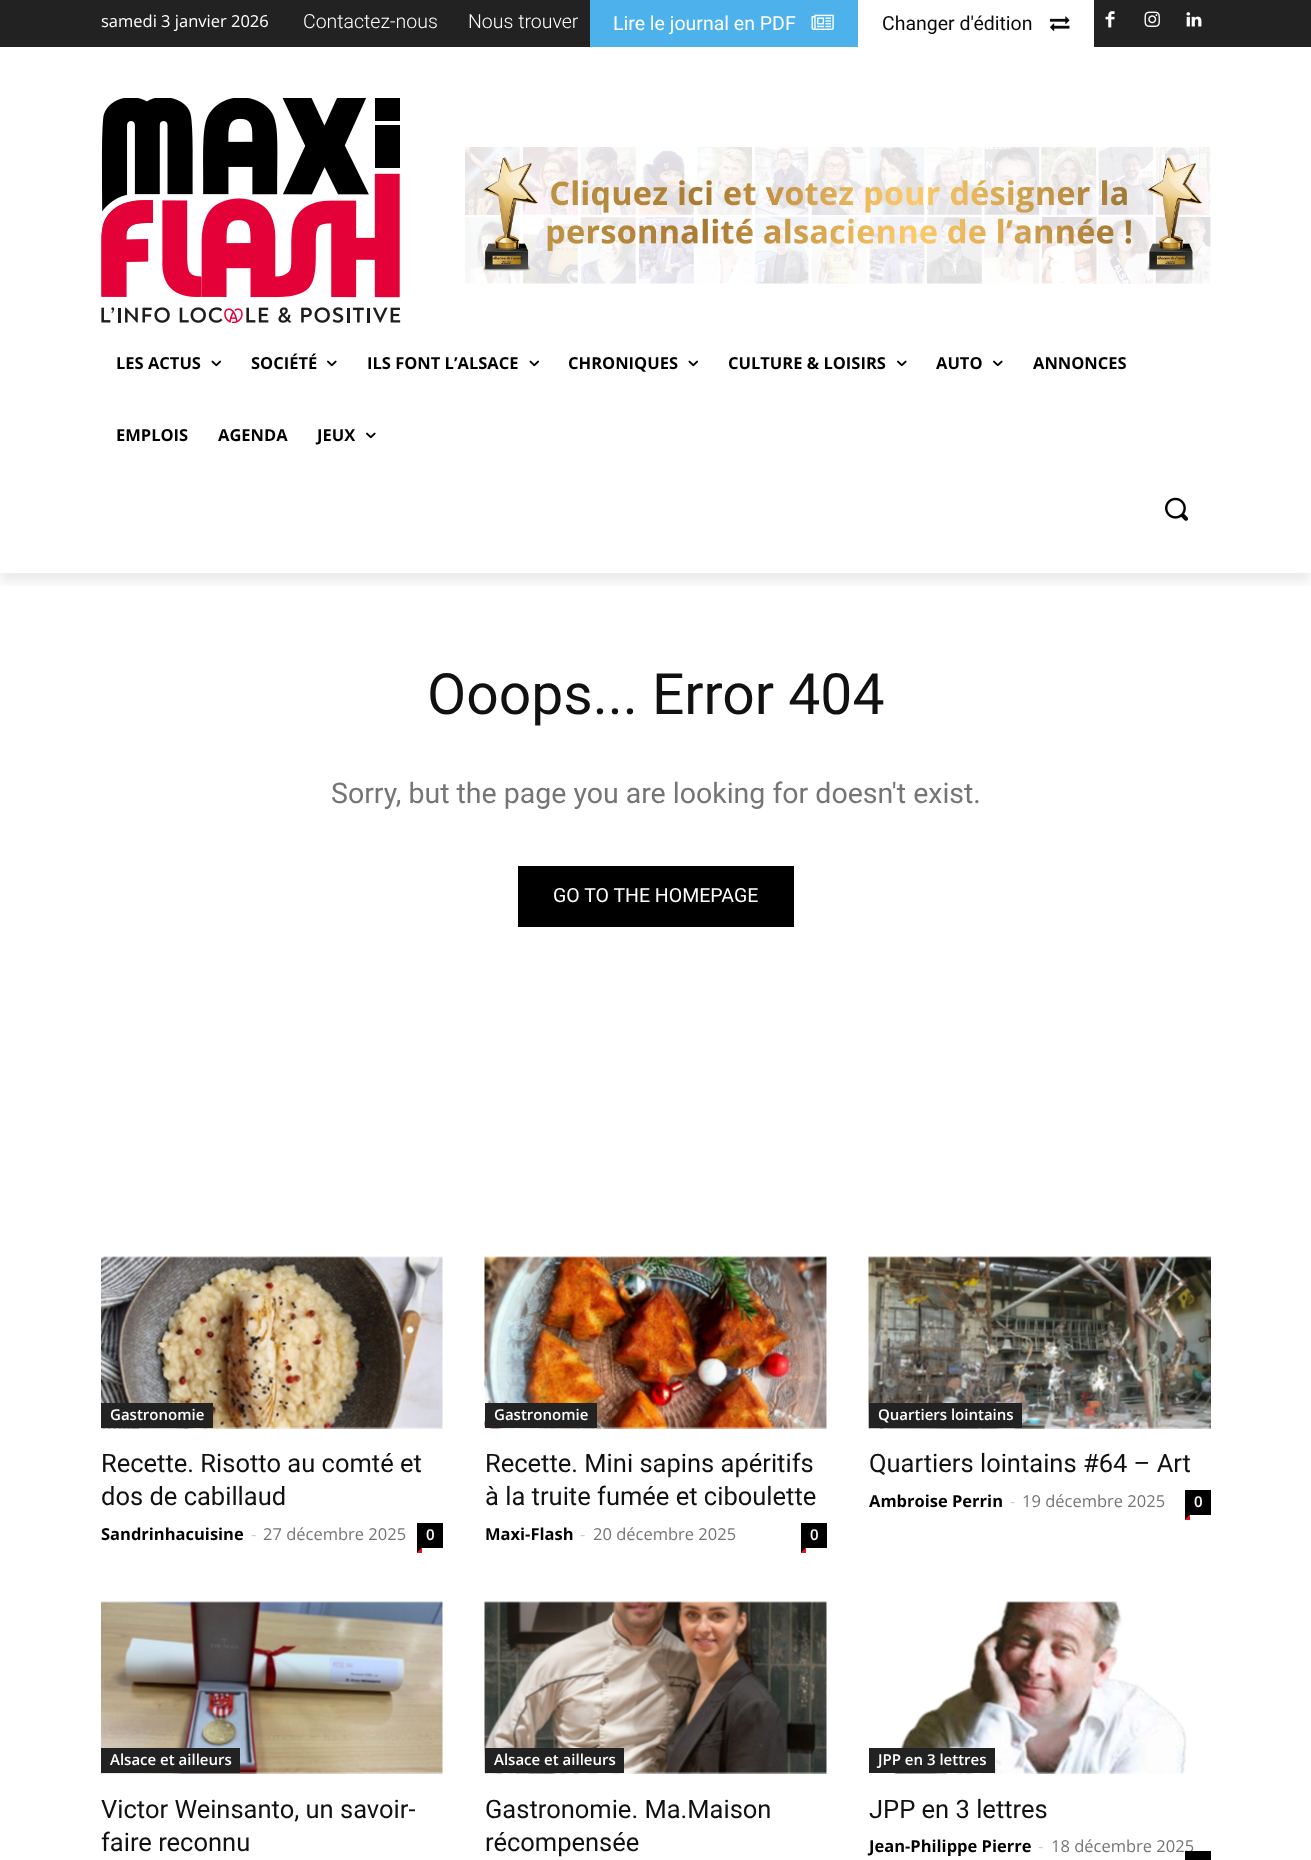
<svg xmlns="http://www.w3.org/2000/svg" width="1311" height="1860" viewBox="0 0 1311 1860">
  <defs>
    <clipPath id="clip1"><rect x="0" y="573" width="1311" height="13"/></clipPath>
  </defs>
  <rect width="100%" height="100%" fill="rgb(255,255,255)"/>
  <rect x="0" y="0" width="1311" height="47" fill="rgb(34,34,34)"/>
  <rect x="590" y="0" width="268" height="47" fill="rgb(77,178,236)"/>
  <image x="811" y="14" width="23" height="16" href="pic1.png"/>
  <rect x="858" y="0" width="236" height="47" fill="rgb(255,255,255)"/>
  <image x="1050" y="16" width="20" height="15" href="pic2.png"/>
  <image x="1105" y="11" width="10" height="17" href="pic3.png"/>
  <image x="1144" y="11" width="16" height="16" href="pic4.png"/>
  <image x="1186" y="12" width="16" height="15" href="pic5.png"/>
  <image x="101" y="98" width="300" height="225" href="pic6.png"/>
  <image x="465" y="147" width="746" height="137" href="pic7.png"/>
  <g clip-path="url(#clip1)">
    <rect x="0" y="9" width="1311" height="573" fill="rgba(0,0,0,0.08)" filter="blur(6px)"/>
  </g>
  <text x="101" y="27" font-family="Open Sans" font-size="16.5" fill="rgb(255,255,255)">samedi 3 janvier 2026</text>
  <g font-family="Roboto" font-size="19.5" font-weight="300" fill="rgb(255,255,255)">
    <text x="303" y="28">Contactez-nous</text>
    <text x="468" y="28">Nous trouver</text>
  </g>
  <text x="613" y="30" font-family="Roboto" font-size="19.5" fill="rgb(255,255,255)">Lire le journal en PDF</text>
  <text x="882" y="30" font-family="Roboto" font-size="19.5" fill="rgb(10,10,10)">Changer d'édition</text>
  <text x="116" y="369" font-family="Open Sans" font-size="16.5" font-weight="bold" fill="rgb(0,0,0)">LES ACTUS</text>
  <image x="211" y="360" width="10" height="7" href="pic8.png"/>
  <text x="251" y="369" font-family="Open Sans" font-size="16.5" font-weight="bold" fill="rgb(0,0,0)">SOCIÉTÉ</text>
  <image x="327" y="360" width="10" height="7" href="pic9.png"/>
  <text x="367" y="369" font-family="Open Sans" font-size="16.5" font-weight="bold" fill="rgb(0,0,0)">ILS FONT L’ALSACE</text>
  <image x="529" y="360" width="10" height="7" href="pic8.png"/>
  <text x="568" y="369" font-family="Open Sans" font-size="16.5" font-weight="bold" fill="rgb(0,0,0)">CHRONIQUES</text>
  <image x="688" y="360" width="10" height="7" href="pic8.png"/>
  <text x="728" y="369" font-family="Open Sans" font-size="16.5" font-weight="bold" fill="rgb(0,0,0)">CULTURE &amp; LOISIRS</text>
  <image x="897" y="360" width="10" height="7" href="pic9.png"/>
  <text x="936" y="369" font-family="Open Sans" font-size="16.5" font-weight="bold" fill="rgb(0,0,0)">AUTO</text>
  <image x="993" y="360" width="10" height="7" href="pic9.png"/>
  <g font-family="Open Sans" font-size="16.5" font-weight="bold" fill="rgb(0,0,0)">
    <text x="1033" y="369">ANNONCES</text>
    <text x="116" y="441">EMPLOIS</text>
    <text x="218" y="441">AGENDA</text>
    <text x="317" y="441">JEUX</text>
  </g>
  <image x="366" y="432" width="10" height="7" href="pic9.png"/>
  <image x="1165" y="497" width="23" height="24" href="pic10.png"/>
  <text x="427" y="714" font-family="Roboto" font-size="57" fill="rgb(17,17,17)">Ooops... Error 404</text>
  <text x="331" y="803" font-family="Roboto" font-size="28.5" fill="rgb(117,117,117)">Sorry, but the page you are looking for doesn't exist.</text>
  <rect x="518" y="866" width="276" height="61" fill="rgb(0,0,0)"/>
  <text x="553" y="902" font-family="Roboto" font-size="19.5" fill="rgb(255,255,255)">GO TO THE HOMEPAGE</text>
  <image x="101" y="1256" width="342" height="173" href="pic11.png"/>
  <rect x="101" y="1403" width="112" height="25" fill="rgb(34,34,34)"/>
  <text x="110" y="1420" font-family="Open Sans" font-size="15" font-weight="600" fill="rgb(255,255,255)">Gastronomie</text>
  <g font-family="Roboto" font-size="25.5" fill="rgb(17,17,17)">
    <text>
      <tspan x="101" y="1472">Recette. Risotto au comté et</tspan>
      <tspan x="101" y="1505">dos de cabillaud</tspan>
    </text>
  </g>
  <text x="101" y="1540" font-family="Open Sans" font-size="16.5" font-weight="bold" fill="rgb(0,0,0)">Sandrinhacuisine</text>
  <text x="251" y="1540" font-family="Open Sans" font-size="16.5" fill="rgb(204,204,204)">-</text>
  <text x="263" y="1540" font-family="Open Sans" font-size="16.5" fill="rgb(117,117,117)">27 décembre 2025</text>
  <rect x="417" y="1523" width="26" height="25" fill="rgb(0,0,0)"/>
  <text x="426" y="1540" font-family="Open Sans" font-size="15" font-weight="600" fill="rgb(255,255,255)">0</text>
  <rect x="417" y="1548" width="5" height="5" fill="rgb(255,9,23)"/>
  <path d="M417 1548H421.5L417 1552.5Z" fill="rgb(0,0,0)"/>
  <image x="484" y="1256" width="343" height="173" href="pic12.png"/>
  <rect x="485" y="1403" width="112" height="25" fill="rgb(34,34,34)"/>
  <text x="494" y="1420" font-family="Open Sans" font-size="15" font-weight="600" fill="rgb(255,255,255)">Gastronomie</text>
  <g font-family="Roboto" font-size="25.5" fill="rgb(17,17,17)">
    <text>
      <tspan x="485" y="1472">Recette. Mini sapins apéritifs</tspan>
      <tspan x="485" y="1505">à la truite fumée et ciboulette</tspan>
    </text>
  </g>
  <text x="485" y="1540" font-family="Open Sans" font-size="16.5" font-weight="bold" fill="rgb(0,0,0)">Maxi-Flash</text>
  <text x="580" y="1540" font-family="Open Sans" font-size="16.5" fill="rgb(204,204,204)">-</text>
  <text x="593" y="1540" font-family="Open Sans" font-size="16.5" fill="rgb(117,117,117)">20 décembre 2025</text>
  <rect x="801" y="1523" width="26" height="25" fill="rgb(0,0,0)"/>
  <text x="810" y="1540" font-family="Open Sans" font-size="15" font-weight="600" fill="rgb(255,255,255)">0</text>
  <rect x="801" y="1548" width="5" height="5" fill="rgb(255,9,23)"/>
  <path d="M801 1548H805.5L801 1552.5Z" fill="rgb(0,0,0)"/>
  <image x="868" y="1256" width="343" height="173" href="pic13.png"/>
  <rect x="869" y="1403" width="153" height="25" fill="rgb(34,34,34)"/>
  <text x="878" y="1420" font-family="Open Sans" font-size="15" font-weight="600" fill="rgb(255,255,255)">Quartiers lointains</text>
  <text x="869" y="1472" font-family="Roboto" font-size="25.5" fill="rgb(17,17,17)">Quartiers lointains #64 – Art</text>
  <text x="869" y="1507" font-family="Open Sans" font-size="16.5" font-weight="bold" fill="rgb(0,0,0)">Ambroise Perrin</text>
  <text x="1010" y="1507" font-family="Open Sans" font-size="16.5" fill="rgb(204,204,204)">-</text>
  <text x="1022" y="1507" font-family="Open Sans" font-size="16.5" fill="rgb(117,117,117)">19 décembre 2025</text>
  <rect x="1185" y="1490" width="26" height="25" fill="rgb(0,0,0)"/>
  <text x="1194" y="1507" font-family="Open Sans" font-size="15" font-weight="600" fill="rgb(255,255,255)">0</text>
  <rect x="1185" y="1515" width="5" height="5" fill="rgb(255,9,23)"/>
  <path d="M1185 1515H1189.5L1185 1519.5Z" fill="rgb(0,0,0)"/>
  <image x="101" y="1601" width="342" height="173" href="pic14.png"/>
  <rect x="101" y="1748" width="139" height="25" fill="rgb(34,34,34)"/>
  <text x="110" y="1765" font-family="Open Sans" font-size="15" font-weight="600" fill="rgb(255,255,255)">Alsace et ailleurs</text>
  <g font-family="Roboto" font-size="25.5" fill="rgb(17,17,17)">
    <text>
      <tspan x="101" y="1818">Victor Weinsanto, un savoir-</tspan>
      <tspan x="101" y="1851">faire reconnu</tspan>
    </text>
  </g>
  <image x="484" y="1601" width="343" height="173" href="pic15.png"/>
  <rect x="485" y="1748" width="139" height="25" fill="rgb(34,34,34)"/>
  <text x="494" y="1765" font-family="Open Sans" font-size="15" font-weight="600" fill="rgb(255,255,255)">Alsace et ailleurs</text>
  <g font-family="Roboto" font-size="25.5" fill="rgb(17,17,17)">
    <text>
      <tspan x="485" y="1818">Gastronomie. Ma.Maison</tspan>
      <tspan x="485" y="1851">récompensée</tspan>
    </text>
  </g>
  <image x="891" y="1601" width="296" height="173" href="pic16.png"/>
  <rect x="869" y="1748" width="126" height="25" fill="rgb(34,34,34)"/>
  <text x="878" y="1765" font-family="Open Sans" font-size="15" font-weight="600" fill="rgb(255,255,255)">JPP en 3 lettres</text>
  <text x="869" y="1818" font-family="Roboto" font-size="25.5" fill="rgb(17,17,17)">JPP en 3 lettres</text>
  <text x="869" y="1852" font-family="Open Sans" font-size="16.5" font-weight="bold" fill="rgb(0,0,0)">Jean-Philippe Pierre</text>
  <text x="1038" y="1852" font-family="Open Sans" font-size="16.5" fill="rgb(204,204,204)">-</text>
  <text x="1051" y="1852" font-family="Open Sans" font-size="16.5" fill="rgb(117,117,117)">18 décembre 2025</text>
  <rect x="1185" y="1851" width="26" height="9" fill="rgb(0,0,0)"/>
</svg>
